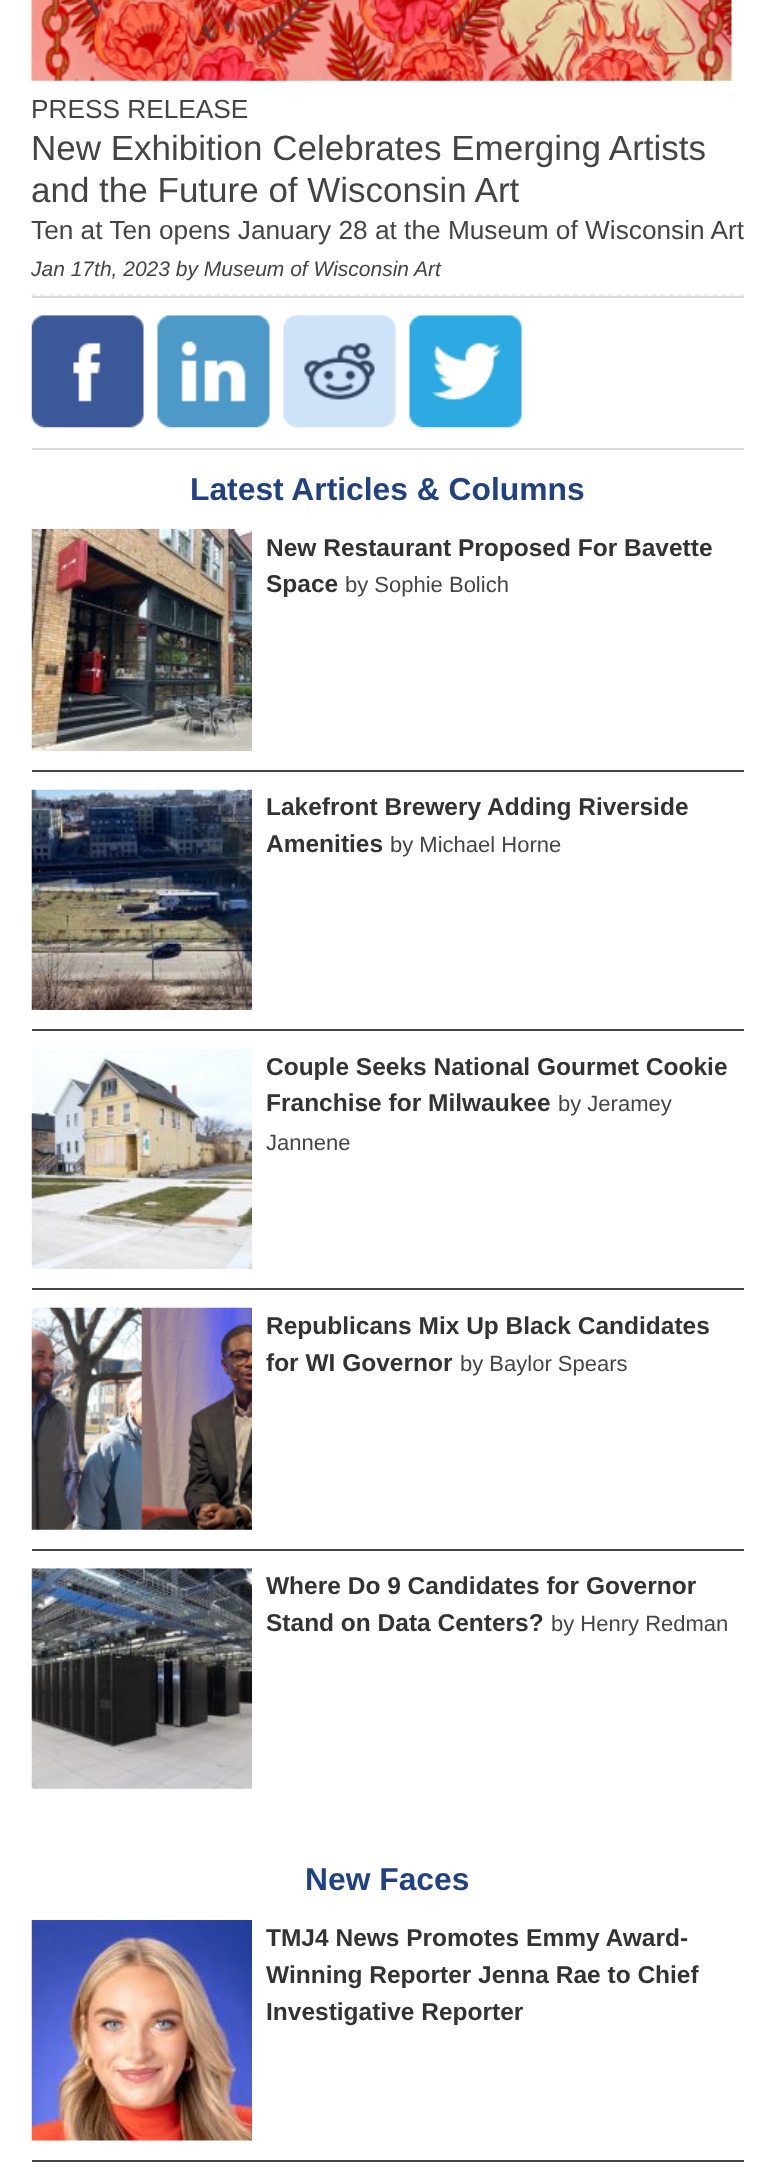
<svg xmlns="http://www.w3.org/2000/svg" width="775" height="2178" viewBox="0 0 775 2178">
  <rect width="100%" height="100%" fill="rgb(255,255,255)"/>
  <path d="M31.5 295H744" fill="none" stroke="rgb(238,238,238)" stroke-width="1.8" stroke-dasharray="5.25 3.48"/>
  <image x="31" y="0" width="701" height="81" href="pic1.png"/>
  <text x="31" y="118" font-family="Liberation Sans" font-size="26.25" fill="rgb(68,68,68)">PRESS RELEASE</text>
  <g font-family="Liberation Sans" font-size="35" fill="rgb(68,68,68)">
    <text>
      <tspan x="31" y="160">New Exhibition Celebrates Emerging Artists</tspan>
      <tspan x="31" y="202">and the Future of Wisconsin Art</tspan>
    </text>
  </g>
  <text x="31" y="239" font-family="Liberation Sans" font-size="26.25" fill="rgb(68,68,68)">Ten at Ten opens January 28 at the Museum of Wisconsin Art</text>
  <text x="31" y="276" font-family="Liberation Sans" font-size="21" font-style="italic" fill="rgb(68,68,68)">Jan 17th, 2023 by Museum of Wisconsin Art</text>
  <rect x="32" y="296" width="712" height="2" fill="rgb(219,219,219)"/>
  <rect x="32" y="448" width="712" height="2" fill="rgb(219,219,219)"/>
  <image x="31" y="315" width="113" height="113" href="pic2.png"/>
  <image x="157" y="315" width="113" height="113" href="pic3.png"/>
  <image x="283" y="315" width="113" height="113" href="pic4.png"/>
  <image x="409" y="315" width="113" height="113" href="pic5.png"/>
  <text x="190" y="500" font-family="Liberation Sans" font-size="31.8" font-weight="bold" fill="rgb(33,65,133)">Latest Articles &amp; Columns</text>
  <rect x="32" y="770" width="712" height="2" fill="rgb(70,70,70)"/>
  <image x="31" y="528" width="221" height="223" href="pic6.png"/>
  <g font-family="Liberation Sans" font-size="24.5" font-weight="bold" fill="rgb(51,51,51)">
    <text>
      <tspan x="266" y="556">New Restaurant Proposed For Bavette</tspan>
      <tspan x="266" y="592">Space</tspan>
    </text>
  </g>
  <text x="345" y="592" font-family="Liberation Sans" font-size="22" fill="rgb(68,68,68)">by Sophie Bolich</text>
  <rect x="32" y="1029" width="712" height="2" fill="rgb(70,70,70)"/>
  <image x="31" y="789" width="221" height="221" href="pic7.png"/>
  <g font-family="Liberation Sans" font-size="24.5" font-weight="bold" fill="rgb(51,51,51)">
    <text>
      <tspan x="266" y="815">Lakefront Brewery Adding Riverside</tspan>
      <tspan x="266" y="852">Amenities</tspan>
    </text>
  </g>
  <text x="390" y="852" font-family="Liberation Sans" font-size="22" fill="rgb(68,68,68)">by Michael Horne</text>
  <rect x="32" y="1288" width="712" height="2" fill="rgb(70,70,70)"/>
  <image x="31" y="1049" width="221" height="220" href="pic8.png"/>
  <g font-family="Liberation Sans" font-size="24.5" font-weight="bold" fill="rgb(51,51,51)">
    <text>
      <tspan x="266" y="1075">Couple Seeks National Gourmet Cookie</tspan>
      <tspan x="266" y="1111">Franchise for Milwaukee</tspan>
    </text>
  </g>
  <g font-family="Liberation Sans" font-size="22" fill="rgb(68,68,68)">
    <text x="558" y="1111">by Jeramey</text>
    <text x="266" y="1150">Jannene</text>
  </g>
  <rect x="32" y="1549" width="712" height="2" fill="rgb(70,70,70)"/>
  <image x="31" y="1307" width="221" height="223" href="pic9.png"/>
  <g font-family="Liberation Sans" font-size="24.5" font-weight="bold" fill="rgb(51,51,51)">
    <text>
      <tspan x="266" y="1334">Republicans Mix Up Black Candidates</tspan>
      <tspan x="266" y="1371">for WI Governor</tspan>
    </text>
  </g>
  <text x="460" y="1371" font-family="Liberation Sans" font-size="22" fill="rgb(68,68,68)">by Baylor Spears</text>
  <image x="31" y="1568" width="221" height="221" href="pic10.png"/>
  <g font-family="Liberation Sans" font-size="24.5" font-weight="bold" fill="rgb(51,51,51)">
    <text>
      <tspan x="266" y="1594">Where Do 9 Candidates for Governor</tspan>
      <tspan x="266" y="1631">Stand on Data Centers?</tspan>
    </text>
  </g>
  <text x="551" y="1631" font-family="Liberation Sans" font-size="22" fill="rgb(68,68,68)">by Henry Redman</text>
  <text x="305" y="1890" font-family="Liberation Sans" font-size="31.8" font-weight="bold" fill="rgb(33,65,133)">New Faces</text>
  <rect x="32" y="2160" width="712" height="2" fill="rgb(70,70,70)"/>
  <image x="31" y="1920" width="221" height="221" href="pic11.png"/>
  <g font-family="Liberation Sans" font-size="24.5" font-weight="bold" fill="rgb(51,51,51)">
    <text>
      <tspan x="266" y="1946">TMJ4 News Promotes Emmy Award-</tspan>
      <tspan x="266" y="1983">Winning Reporter Jenna Rae to Chief</tspan>
      <tspan x="266" y="2020">Investigative Reporter</tspan>
    </text>
  </g>
</svg>
